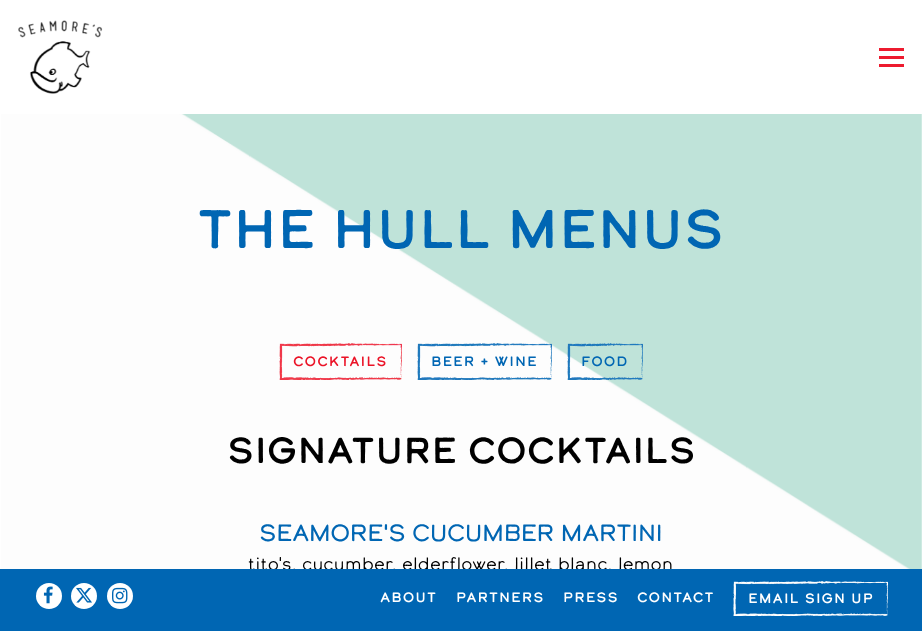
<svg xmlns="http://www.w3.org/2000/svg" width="922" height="631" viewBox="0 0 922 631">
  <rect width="100%" height="100%" fill="rgb(255,255,255)"/>
  <image x="1" y="114" width="921" height="455" href="pic1.png"/>
  <image x="18" y="20" width="85" height="74" href="pic2.png"/>
  <rect x="879" y="48" width="25" height="3" fill="rgb(237,27,47)"/>
  <rect x="879" y="56" width="25" height="3" fill="rgb(237,27,47)"/>
  <rect x="879" y="64" width="25" height="3" fill="rgb(237,27,47)"/>
  <text x="197" y="248" font-family="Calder" font-size="54" fill="rgb(0,102,179)">THE HULL MENUS</text>
  <image x="279" y="343" width="123" height="37" href="pic3.png"/>
  <text x="293" y="366" font-family="Calder" font-size="13.5" letter-spacing="1" fill="rgb(235,19,39)">COCKTAILS</text>
  <image x="417" y="343" width="135" height="37" href="pic4.png"/>
  <text x="431" y="366" font-family="Calder" font-size="13.5" letter-spacing="1" fill="rgb(0,102,179)">BEER + WINE</text>
  <image x="567" y="343" width="76" height="37" href="pic5.png"/>
  <text x="581" y="366" font-family="Calder" font-size="13.5" letter-spacing="1" fill="rgb(0,102,179)">FOOD</text>
  <text x="227" y="463" font-family="Calder" font-size="36" fill="rgb(0,0,0)">SIGNATURE COCKTAILS</text>
  <text x="259" y="541" font-family="Calder" font-size="22.5" font-weight="bold" fill="rgb(0,102,179)">SEAMORE'S CUCUMBER MARTINI</text>
  <text x="248" y="570" font-family="'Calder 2'" font-size="18" fill="rgb(0,0,0)">tito's, cucumber, elderflower, lillet blanc, lemon</text>
  <rect x="0" y="569" width="922" height="62" fill="rgb(0,102,179)"/>
  <circle cx="49" cy="596" r="13" fill="rgb(255,255,255)"/>
  <image x="43" y="586" width="10" height="18" href="pic6.png"/>
  <circle cx="84" cy="596" r="13" fill="rgb(255,255,255)"/>
  <image x="76" y="587" width="16" height="16" href="pic7.png"/>
  <circle cx="120" cy="596" r="13" fill="rgb(255,255,255)"/>
  <image x="112" y="587" width="16" height="17" href="pic8.png"/>
  <g font-family="Calder" font-size="13.5" letter-spacing="1" fill="rgb(255,255,255)">
    <text x="380" y="602">ABOUT</text>
    <text x="456" y="602">PARTNERS</text>
    <text x="563" y="602">PRESS</text>
    <text x="637" y="602">CONTACT</text>
  </g>
  <image x="733" y="581" width="155" height="35" href="pic9.png"/>
  <text x="748" y="603" font-family="Calder" font-size="13.5" letter-spacing="1" fill="rgb(255,255,255)">EMAIL SIGN UP</text>
</svg>
